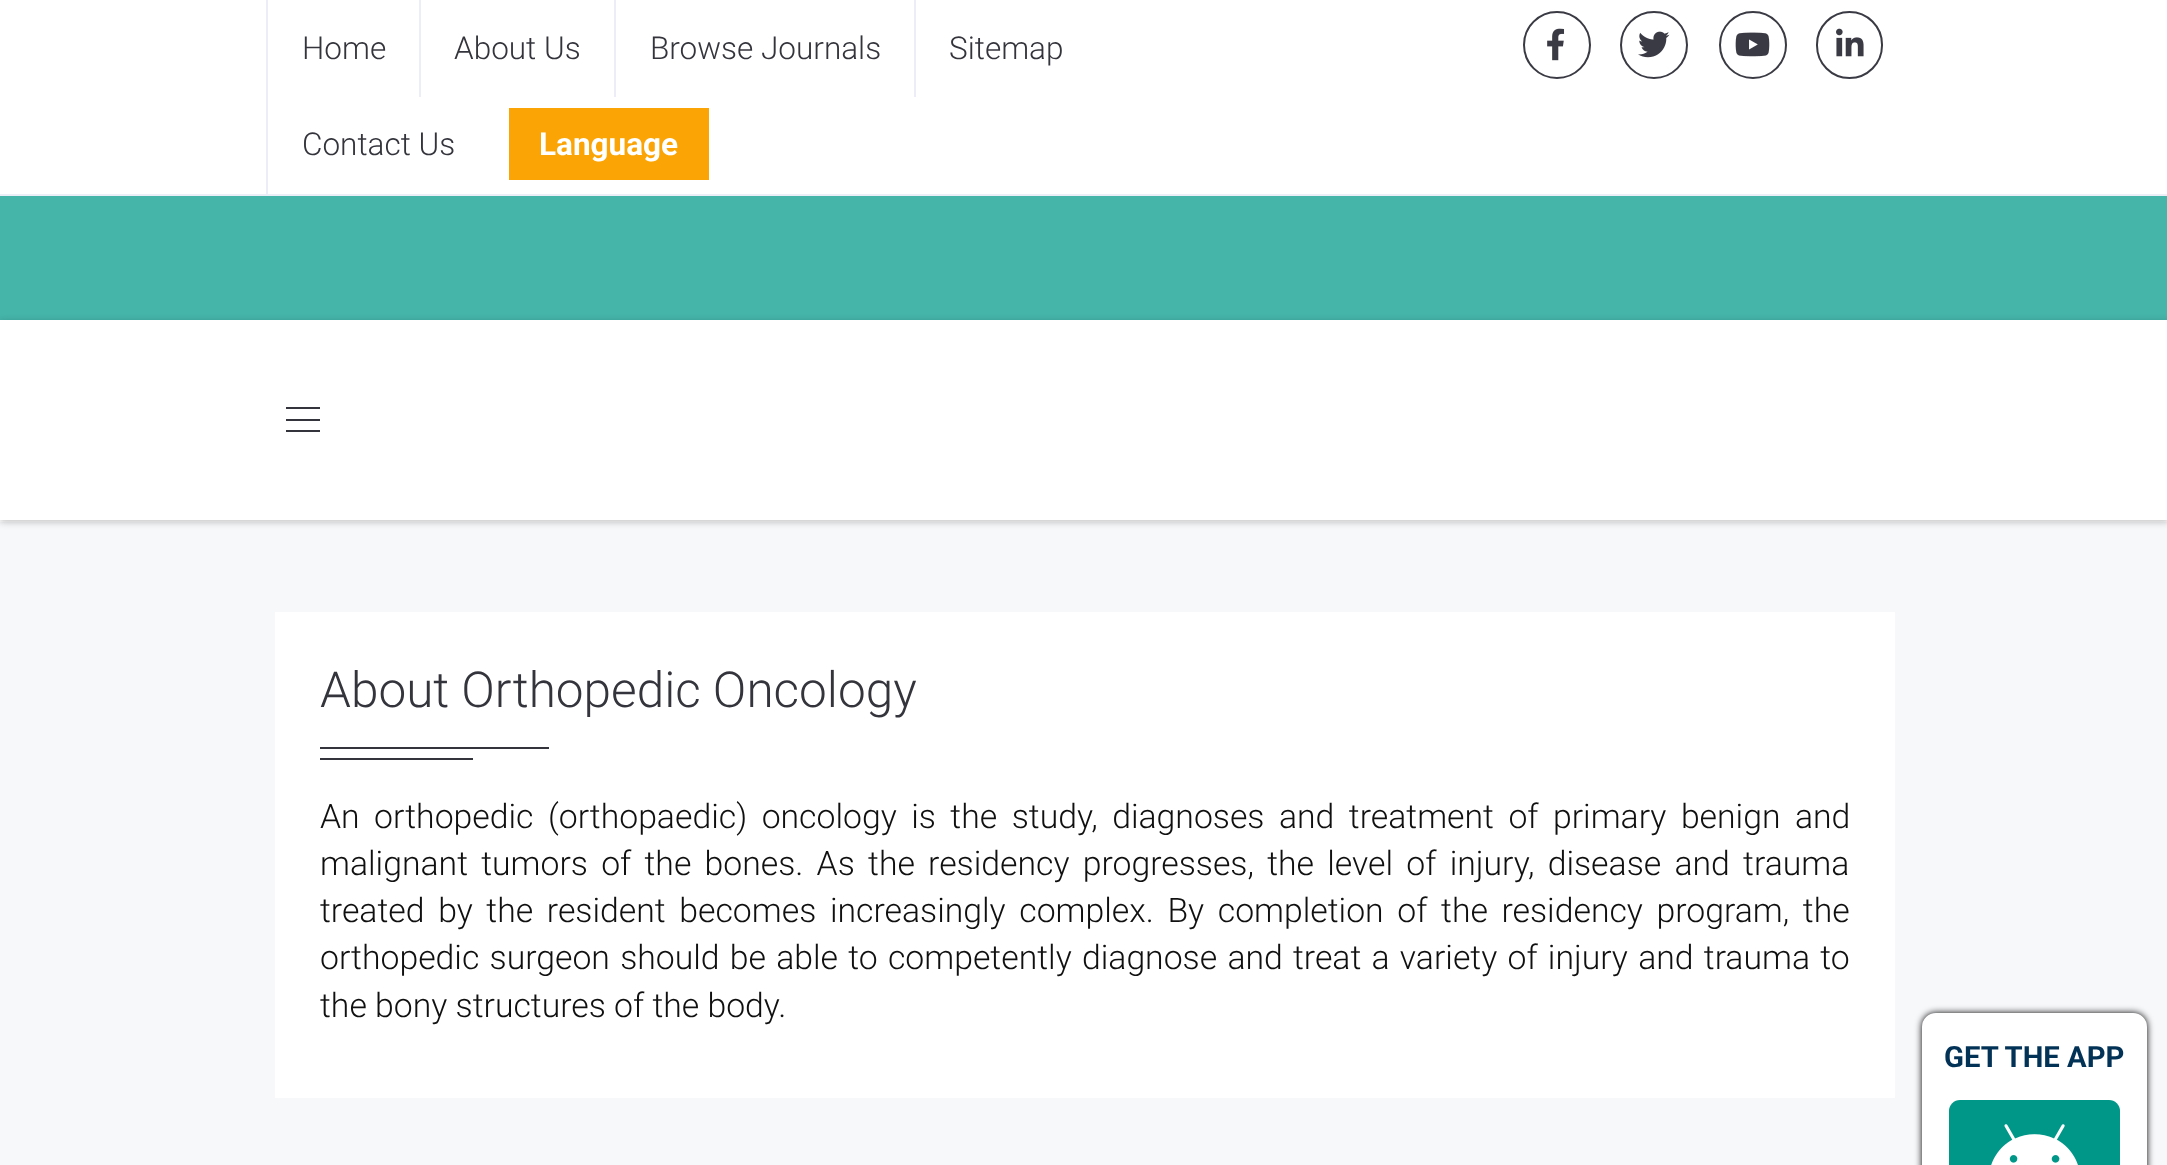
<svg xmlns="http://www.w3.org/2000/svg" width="2167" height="1165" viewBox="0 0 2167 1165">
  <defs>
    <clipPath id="clip1"><path d="M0 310H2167V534H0ZM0 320H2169V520H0Z" clip-rule="evenodd"/></clipPath>
  </defs>
  <rect width="100%" height="100%" fill="rgb(255,255,255)"/>
  <rect x="0" y="194" width="2167" height="2" fill="rgb(235,238,246)"/>
  <rect x="266" y="0" width="2" height="194" fill="rgb(235,238,246)"/>
  <text x="302" y="59" font-family="Roboto" font-size="31.5" font-weight="300" fill="rgb(52,52,60)">Home</text>
  <rect x="419" y="0" width="2" height="97" fill="rgb(235,238,246)"/>
  <text x="454" y="59" font-family="Roboto" font-size="31.5" font-weight="300" fill="rgb(52,52,60)">About Us</text>
  <rect x="614" y="0" width="2" height="97" fill="rgb(235,238,246)"/>
  <text x="650" y="59" font-family="Roboto" font-size="31.5" font-weight="300" fill="rgb(52,52,60)">Browse Journals</text>
  <rect x="914" y="0" width="2" height="97" fill="rgb(235,238,246)"/>
  <g font-family="Roboto" font-size="31.5" font-weight="300" fill="rgb(52,52,60)">
    <text x="949" y="59">Sitemap</text>
    <text x="302" y="155">Contact Us</text>
  </g>
  <rect x="509" y="108" width="200" height="72" fill="rgb(251,164,5)"/>
  <text x="539" y="155" font-family="Roboto" font-size="31.5" font-weight="bold" fill="rgb(255,255,255)">Language</text>
  <circle cx="1557" cy="45" r="33" fill="none" stroke="rgb(58,58,68)" stroke-width="2"/>
  <image x="1547" y="28" width="18" height="33" href="pic1.png"/>
  <circle cx="1654" cy="45" r="33" fill="none" stroke="rgb(58,58,68)" stroke-width="2"/>
  <image x="1638" y="31" width="32" height="27" href="pic2.png"/>
  <circle cx="1753" cy="45" r="33" fill="none" stroke="rgb(58,58,68)" stroke-width="2"/>
  <image x="1735" y="32" width="35" height="25" href="pic3.png"/>
  <rect x="1817" y="12" width="65" height="66" rx="32.5" fill="none" stroke="rgb(58,58,68)" stroke-width="2"/>
  <image x="1836" y="28" width="28" height="29" href="pic4.png"/>
  <rect x="0" y="196" width="2167" height="124" fill="rgb(69,180,169)"/>
  <rect x="0" y="522" width="2167" height="643" fill="rgb(247,248,250)"/>
  <g clip-path="url(#clip1)">
    <rect x="0" y="322" width="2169" height="200" fill="rgba(0,0,0,0.24)" filter="blur(3.5px)"/>
  </g>
  <rect x="286" y="430" width="34" height="2" fill="rgb(52,52,60)"/>
  <rect x="286" y="407" width="34" height="2" fill="rgb(52,52,60)"/>
  <rect x="286" y="419" width="34" height="2" fill="rgb(52,52,60)"/>
  <rect x="275" y="612" width="1620" height="486" fill="rgb(255,255,255)"/>
  <text x="320" y="707" font-family="Roboto" font-size="49.5" font-weight="300" fill="rgb(52,52,60)">About Orthopedic Oncology</text>
  <rect x="320" y="747" width="229" height="2" fill="rgb(52,52,60)"/>
  <rect x="320" y="758" width="153" height="2" fill="rgb(52,52,60)"/>
  <g font-family="Roboto" font-size="33.75" font-weight="300" fill="rgb(16,16,16)">
    <text>
      <tspan x="320" y="828" word-spacing="6.25">An orthopedic (orthopaedic) oncology is the study, diagnoses and treatment of primary benign and</tspan>
      <tspan x="320" y="875" word-spacing="5">malignant tumors of the bones. As the residency progresses, the level of injury, disease and trauma</tspan>
      <tspan x="320" y="922" word-spacing="5.4">treated by the resident becomes increasingly complex. By completion of the residency program, the</tspan>
      <tspan x="320" y="969" word-spacing="2">orthopedic surgeon should be able to competently diagnose and treat a variety of injury and trauma to</tspan>
      <tspan x="320" y="1017">the bony structures of the body.</tspan>
    </text>
  </g>
  <rect x="1922" y="1013" width="225" height="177" rx="14" fill="rgb(0,0,0)" filter="blur(3.5px)"/>
  <rect x="1923" y="1014" width="223" height="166" rx="13" fill="rgb(255,255,255)" stroke="rgb(255,255,255)" stroke-width="2"/>
  <text x="1944" y="1067" font-family="Roboto" font-size="29.25" font-weight="bold" fill="rgb(2,50,86)">GET THE APP</text>
  <rect x="1949" y="1100" width="171" height="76" rx="11" fill="rgb(0,150,136)"/>
  <image x="1991" y="1124" width="87" height="41" href="pic5.png"/>
</svg>
